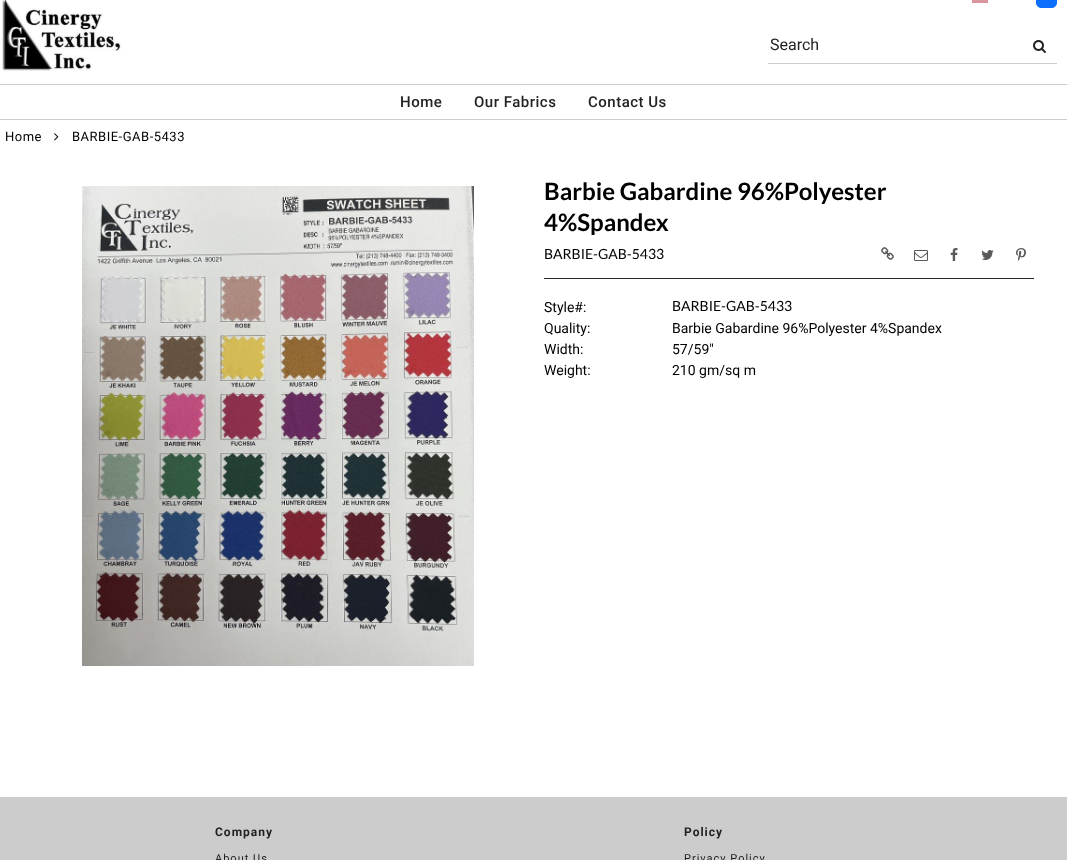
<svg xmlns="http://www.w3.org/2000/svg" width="1067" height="860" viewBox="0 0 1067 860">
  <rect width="100%" height="100%" fill="rgb(255,255,255)"/>
  <image x="2" y="0" width="120" height="71" href="pic1.png"/>
  <rect x="972" y="0" width="16" height="3" fill="rgb(218,150,159)"/>
  <rect x="1036.5" y="-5.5" width="20" height="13" rx="4.5" fill="rgb(13,110,253)" stroke="rgb(13,110,253)"/>
  <rect x="768" y="63" width="289" height="1" fill="rgb(204,204,204)"/>
  <text x="770" y="50" font-family="Roboto" font-size="16" fill="rgb(34,34,34)">Search</text>
  <image x="1033" y="40" width="13" height="13" href="pic2.png"/>
  <rect x="0" y="84" width="1067" height="1" fill="rgb(204,204,204)"/>
  <rect x="0" y="119" width="1067" height="1" fill="rgb(204,204,204)"/>
  <g font-family="Roboto" font-size="15" font-weight="500" letter-spacing="0.5" fill="rgb(34,34,34)">
    <text x="400" y="107">Home</text>
    <text x="474" y="107">Our Fabrics</text>
    <text x="588" y="107">Contact Us</text>
  </g>
  <text x="5" y="141" font-family="Roboto" font-size="13" letter-spacing="0.5" fill="rgb(0,0,0)">Home</text>
  <image x="54" y="133" width="5" height="8" href="pic3.png"/>
  <text x="72" y="141" font-family="Roboto" font-size="13" letter-spacing="0.5" fill="rgb(0,0,0)">BARBIE-GAB-5433</text>
  <image x="82" y="186" width="392" height="480" href="pic4.png"/>
  <g font-family="Lato" font-size="24" font-weight="bold" fill="rgb(0,0,0)">
    <text>
      <tspan x="544" y="200">Barbie Gabardine 96%Polyester</tspan>
      <tspan x="544" y="231">4%Spandex</tspan>
    </text>
  </g>
  <text x="544" y="259" font-family="Lato" font-size="14" fill="rgb(0,0,0)">BARBIE-GAB-5433</text>
  <image x="881" y="247" width="13" height="13" href="pic5.png"/>
  <image x="914" y="250" width="14" height="11" href="pic6.png"/>
  <image x="950" y="248" width="8" height="13" href="pic7.png"/>
  <image x="981" y="250" width="13" height="10" href="pic8.png"/>
  <image x="1016" y="248" width="10" height="13" href="pic9.png"/>
  <rect x="544" y="278" width="490" height="1" fill="rgb(34,34,34)"/>
  <text x="544" y="312" font-family="Roboto" font-size="14" fill="rgb(0,0,0)">Style#:</text>
  <text x="672" y="311" font-family="Lato" font-size="14" fill="rgb(0,0,0)">BARBIE-GAB-5433</text>
  <g font-family="Roboto" font-size="14" fill="rgb(0,0,0)">
    <text x="544" y="333">Quality:</text>
    <text x="672" y="333">Barbie Gabardine 96%Polyester 4%Spandex</text>
    <text x="544" y="354">Width:</text>
    <text x="672" y="354">57/59"</text>
    <text x="544" y="375">Weight:</text>
    <text x="672" y="375">210 gm/sq m</text>
  </g>
  <rect x="0" y="797" width="1067" height="63" fill="rgb(204,204,204)"/>
  <text x="215" y="836" font-family="Roboto" font-size="12" font-weight="bold" letter-spacing="1" fill="rgb(34,34,34)">Company</text>
  <text x="215" y="862" font-family="Roboto" font-size="11" letter-spacing="1" fill="rgb(34,34,34)">About Us</text>
  <text x="684" y="836" font-family="Roboto" font-size="12" font-weight="bold" letter-spacing="1" fill="rgb(34,34,34)">Policy</text>
  <text x="684" y="862" font-family="Roboto" font-size="11" letter-spacing="1" fill="rgb(34,34,34)">Privacy Policy</text>
</svg>
